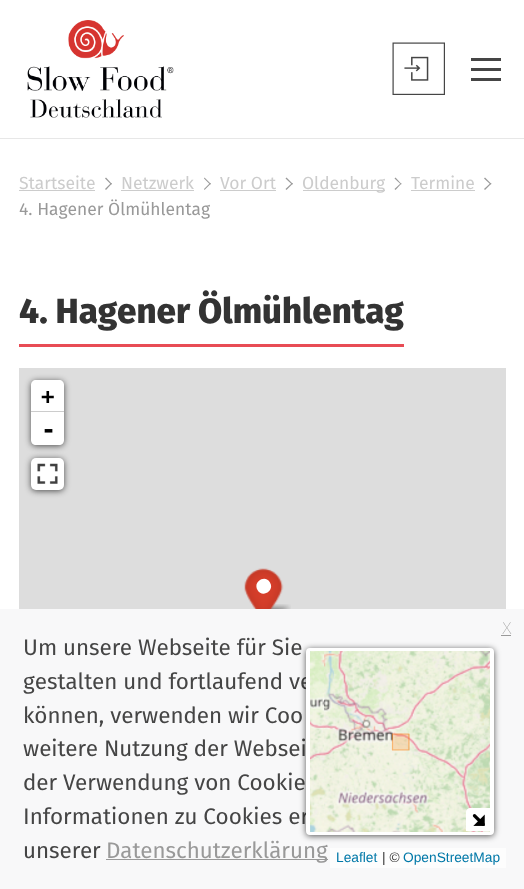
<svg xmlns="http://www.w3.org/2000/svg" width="524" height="889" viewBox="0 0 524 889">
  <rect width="100%" height="100%" fill="rgb(255,255,255)"/>
  <rect x="0" y="138" width="524" height="1" fill="rgb(231,231,231)"/>
  <image x="27" y="20" width="147" height="98" href="pic1.png"/>
  <image x="392" y="42" width="53" height="53" href="pic2.png"/>
  <rect x="471" y="68" width="30" height="3" fill="rgb(69,69,69)"/>
  <rect x="471" y="58" width="30" height="3" fill="rgb(69,69,69)"/>
  <rect x="471" y="78" width="30" height="3" fill="rgb(69,69,69)"/>
  <text x="19" y="189" font-family="Fira Sans" font-size="17.5" fill="rgb(204,204,204)">Startseite</text>
  <rect x="19" y="190" width="76" height="1" fill="rgb(204,204,204)"/>
  <path d="M106 177.5L112 184L111 184.5L105 178.5Z" fill="rgb(153,153,153)"/>
  <path d="M105 189L111 183L112 183.5L106 190Z" fill="rgb(153,153,153)"/>
  <text x="121" y="189" font-family="Fira Sans" font-size="17.5" fill="rgb(204,204,204)">Netzwerk</text>
  <rect x="121" y="190" width="73" height="1" fill="rgb(204,204,204)"/>
  <path d="M204.5 177.5L211 184L210 184.5L204 178.5Z" fill="rgb(153,153,153)"/>
  <path d="M204 189L210 183L211 183.5L204.5 190Z" fill="rgb(153,153,153)"/>
  <text x="220" y="189" font-family="Fira Sans" font-size="17.5" fill="rgb(204,204,204)">Vor Ort</text>
  <rect x="220" y="190" width="56" height="1" fill="rgb(204,204,204)"/>
  <path d="M286.5 177.5L293 184L292 184.5L285.5 178.5Z" fill="rgb(153,153,153)"/>
  <path d="M285.5 189L292 183L293 183.5L286.5 190Z" fill="rgb(153,153,153)"/>
  <rect x="303" y="190" width="82" height="1" fill="rgb(204,204,204)"/>
  <text x="302" y="189" font-family="Fira Sans" font-size="17.5" fill="rgb(204,204,204)">Oldenburg</text>
  <path d="M395.5 177.5L401.5 184L401 184.5L394.5 178.5Z" fill="rgb(153,153,153)"/>
  <path d="M394.5 189L401 183L401.5 183.5L395.5 190Z" fill="rgb(153,153,153)"/>
  <text x="411" y="189" font-family="Fira Sans" font-size="17.5" fill="rgb(204,204,204)">Termine</text>
  <rect x="411" y="190" width="64" height="1" fill="rgb(204,204,204)"/>
  <path d="M485 177.5L491.5 184L490.5 184.5L484 178.5Z" fill="rgb(153,153,153)"/>
  <path d="M484 189L490.5 183L491.5 183.5L485 190Z" fill="rgb(153,153,153)"/>
  <text x="19" y="215" font-family="Fira Sans" font-size="17.5" fill="rgb(153,153,153)">4. Hagener Ölmühlentag</text>
  <rect x="0" y="609" width="524" height="280" fill="rgb(248,248,249)"/>
  <text x="502" y="634" font-family="Fira Sans" font-size="22.5" font-weight="100" fill="rgb(153,153,153)">x</text>
  <rect x="501" y="635" width="10" height="1" fill="rgb(153,153,153)"/>
  <g font-family="Fira Sans" font-size="22.5" fill="rgb(69,69,69)">
    <text>
      <tspan x="23" y="655">Um unsere Webseite für Sie</tspan>
      <tspan x="23" y="689">gestalten und fortlaufend ve</tspan>
      <tspan x="23" y="723">können, verwenden wir Coo</tspan>
      <tspan x="23" y="756">weitere Nutzung der Websei</tspan>
      <tspan x="23" y="790">der Verwendung von Cookie</tspan>
      <tspan x="23" y="824">Informationen zu Cookies er</tspan>
      <tspan x="23" y="858">unserer</tspan>
    </text>
  </g>
  <rect x="106" y="859" width="222" height="1" fill="rgb(153,153,153)"/>
  <text x="106" y="858" font-family="Fira Sans" font-size="22.5" fill="rgb(153,153,153)">Datenschutzerklärung</text>
  <rect x="19" y="344" width="385" height="3" fill="rgb(232,76,85)"/>
  <text x="19" y="323" font-family="Fira Sans" font-size="35" font-weight="800" fill="rgb(51,51,51)">4. Hagener Ölmühlentag</text>
  <rect x="19" y="368" width="487" height="241" fill="rgb(221,221,221)"/>
  <rect x="31" y="381" width="33" height="65" rx="5" fill="rgba(0,0,0,0.65)" filter="blur(3px)"/>
  <path d="M36 380H59C62 380 64 382 64 385V413H31V385C31 382 33 380 36 380Z" fill="rgb(255,255,255)"/>
  <rect x="31" y="411" width="33" height="1" fill="rgb(204,204,204)"/>
  <text x="41" y="404" font-family="DejaVu Sans Mono" font-size="22.5" font-weight="bold" fill="rgb(0,0,0)">+</text>
  <path d="M31 413H64V440C64 443 62 445 59 445H36C33 445 31 443 31 440Z" fill="rgb(255,255,255)"/>
  <text x="41" y="438" font-family="DejaVu Sans Mono" font-size="25" font-weight="bold" fill="rgb(0,0,0)">-</text>
  <rect x="31" y="459" width="33" height="32" rx="5" fill="rgba(0,0,0,0.65)" filter="blur(3px)"/>
  <rect x="31" y="458" width="33" height="32" rx="5" fill="rgb(255,255,255)"/>
  <image x="37" y="463" width="21" height="21" href="pic3.png"/>
  <rect x="306" y="649" width="188" height="187" rx="4" fill="rgba(0,0,0,0.65)" filter="blur(3px)"/>
  <rect x="308" y="650" width="184" height="183" rx="2" fill="none" stroke="rgb(255,255,255)" stroke-width="4"/>
  <image x="310" y="651" width="14" height="181" href="pic4.png"/>
  <image x="324" y="651" width="166" height="181" href="pic5.png"/>
  <rect x="393" y="734" width="16" height="16" fill="rgba(255,120,0,0.2)"/>
  <path d="M392.5 750V734H409V750Z" fill="none" stroke="rgba(255,120,0,0.5)" stroke-width="1.2" stroke-linecap="round" stroke-linejoin="round"/>
  <path d="M470 808H490V831H466V812C466 810 468 808 470 808Z" fill="rgb(255,255,255)"/>
  <image x="472" y="814" width="13" height="12" href="pic6.png"/>
  <rect x="330" y="848" width="176" height="20" fill="rgba(255,255,255,0.7)"/>
  <text x="336" y="862" font-family="Liberation Sans" font-size="13.75" fill="rgb(0,120,168)">Leaflet</text>
  <text x="382" y="862" font-family="Liberation Sans" font-size="13.75" fill="rgb(51,51,51)">| ©</text>
  <text x="403" y="862" font-family="Liberation Sans" font-size="13.75" fill="rgb(0,120,168)">OpenStreetMap</text>
  <image x="255" y="604" width="36" height="5" href="pic8.png"/>
  <image x="244" y="568" width="40" height="41" href="pic7.png"/>
  <path d="M270 582.5C275 591 262 598.5 257.5 590C252.5 581.5 265.5 574 270 582.5Z" fill="rgb(255,255,255)"/>
</svg>
